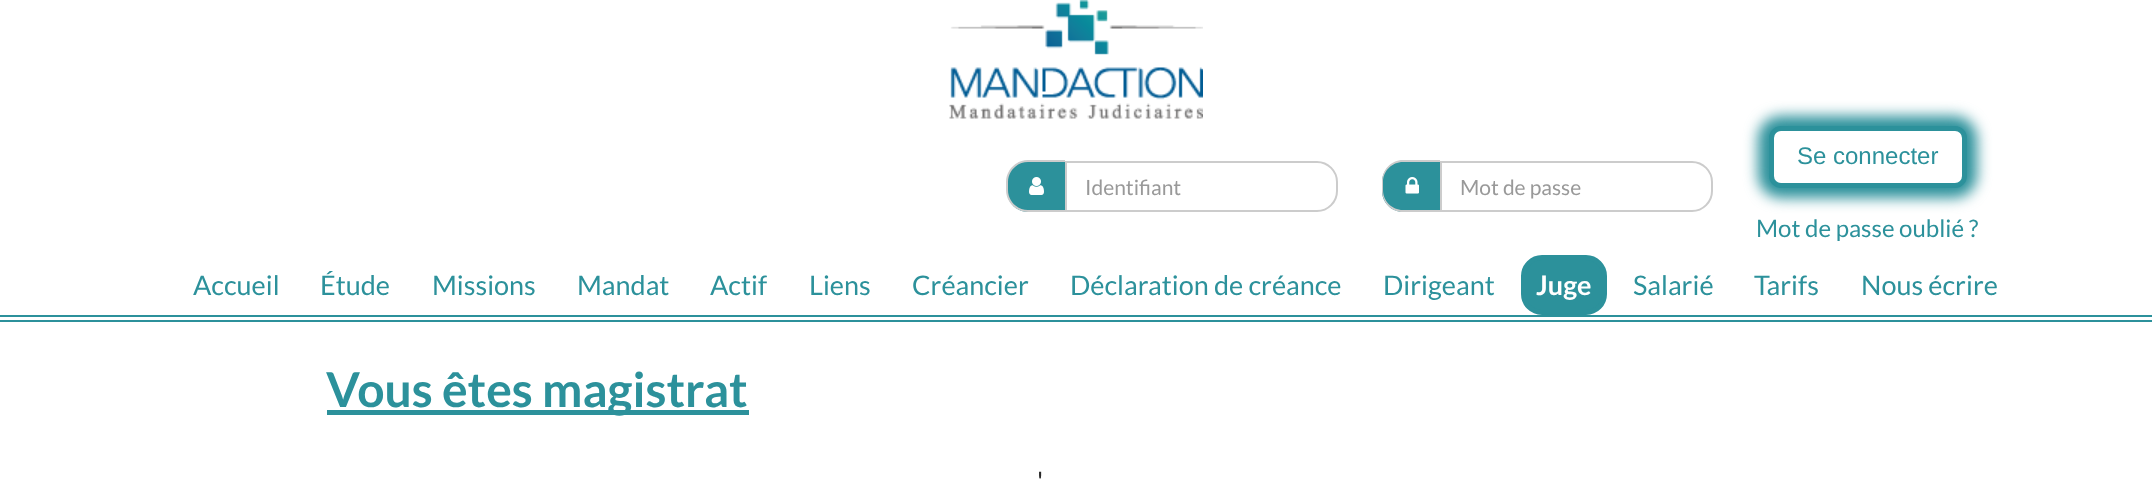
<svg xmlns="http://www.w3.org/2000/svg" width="2152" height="484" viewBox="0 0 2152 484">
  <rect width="100%" height="100%" fill="rgb(255,255,255)"/>
  <rect x="0" y="315" width="2152" height="2" fill="rgb(44,145,155)"/>
  <rect x="0" y="320" width="2152" height="2" fill="rgb(44,145,155)"/>
  <image x="949" y="0" width="254" height="119" href="pic1.png"/>
  <path d="M1028 161H1065V212H1028C1016.5 212 1007 202.5 1007 191V182C1007 170.5 1016.5 161 1028 161Z" fill="rgb(44,145,155)"/>
  <path d="M1028 160H1065V212H1028C1016 212 1006 202 1006 190V182C1006 170 1016 160 1028 160ZM1028 162H1065V210H1028C1017 210 1008 201 1008 190V182C1008 171 1017 162 1028 162Z" fill="rgb(204,204,204)" fill-rule="evenodd"/>
  <image x="1029" y="177" width="15" height="18" href="pic2.png"/>
  <path d="M1066 162H1317C1328 162 1337 171 1337 182V191C1337 202 1328 211 1317 211H1066Z" fill="none" stroke="rgb(204,204,204)" stroke-width="2"/>
  <text x="1085" y="195" font-family="Lato" font-size="21" fill="rgb(153,153,153)">Identifiant</text>
  <path d="M1403 161H1440V212H1403C1391.5 212 1382 202.5 1382 191V182C1382 170.5 1391.5 161 1403 161Z" fill="rgb(44,145,155)"/>
  <path d="M1403 160H1440V212H1403C1391 212 1382 202 1382 190V182C1382 170 1391 160 1403 160ZM1403 162H1440V210H1403C1392 210 1383 201 1383 190V182C1383 171 1392 162 1403 162Z" fill="rgb(204,204,204)" fill-rule="evenodd"/>
  <image x="1405" y="177" width="14" height="17" href="pic3.png"/>
  <path d="M1441 162H1692C1703 162 1712 171 1712 182V191C1712 202 1703 211 1692 211H1441Z" fill="none" stroke="rgb(204,204,204)" stroke-width="2"/>
  <text x="1460" y="195" font-family="Lato" font-size="21" fill="rgb(153,153,153)">Mot de passe</text>
  <rect x="1758" y="116" width="219" height="82" rx="23" fill="rgb(44,145,155)" filter="blur(7px)"/>
  <rect x="1771.5" y="128.5" width="193" height="57" rx="9.5" fill="rgb(255,255,255)" stroke="rgb(44,145,155)" stroke-width="5"/>
  <text x="1797" y="164" font-family="Liberation Sans" font-size="24" fill="rgb(44,145,155)">Se connecter</text>
  <text x="1756" y="237" font-family="Lato" font-size="24" fill="rgb(44,145,155)">Mot de passe oublié ?</text>
  <g font-family="Lato" font-size="27" fill="rgb(44,145,155)">
    <text x="193" y="295">Accueil</text>
    <text x="320" y="295">Étude</text>
    <text x="432" y="295">Missions</text>
    <text x="577" y="295">Mandat</text>
    <text x="710" y="295">Actif</text>
    <text x="809" y="295">Liens</text>
    <text x="912" y="295">Créancier</text>
    <text x="1070" y="295">Déclaration de créance</text>
    <text x="1383" y="295">Dirigeant</text>
  </g>
  <rect x="1523.5" y="257.5" width="81" height="55" rx="18.5" fill="rgb(44,145,155)" stroke="rgb(44,145,155)" stroke-width="5"/>
  <text x="1536" y="295" font-family="Lato" font-size="27" font-weight="bold" fill="rgb(255,255,255)">Juge</text>
  <g font-family="Lato" font-size="27" fill="rgb(44,145,155)">
    <text x="1633" y="295">Salarié</text>
    <text x="1754" y="295">Tarifs</text>
    <text x="1861" y="295">Nous écrire</text>
  </g>
  <rect x="327" y="410" width="422" height="5" fill="rgb(44,145,155)"/>
  <text x="326" y="407" font-family="Lato" font-size="48" font-weight="bold" fill="rgb(44,145,155)">Vous êtes magistrat</text>
  <text x="1037" y="491" font-family="Lato" font-size="27" fill="rgb(41,41,41)">'</text>
</svg>
